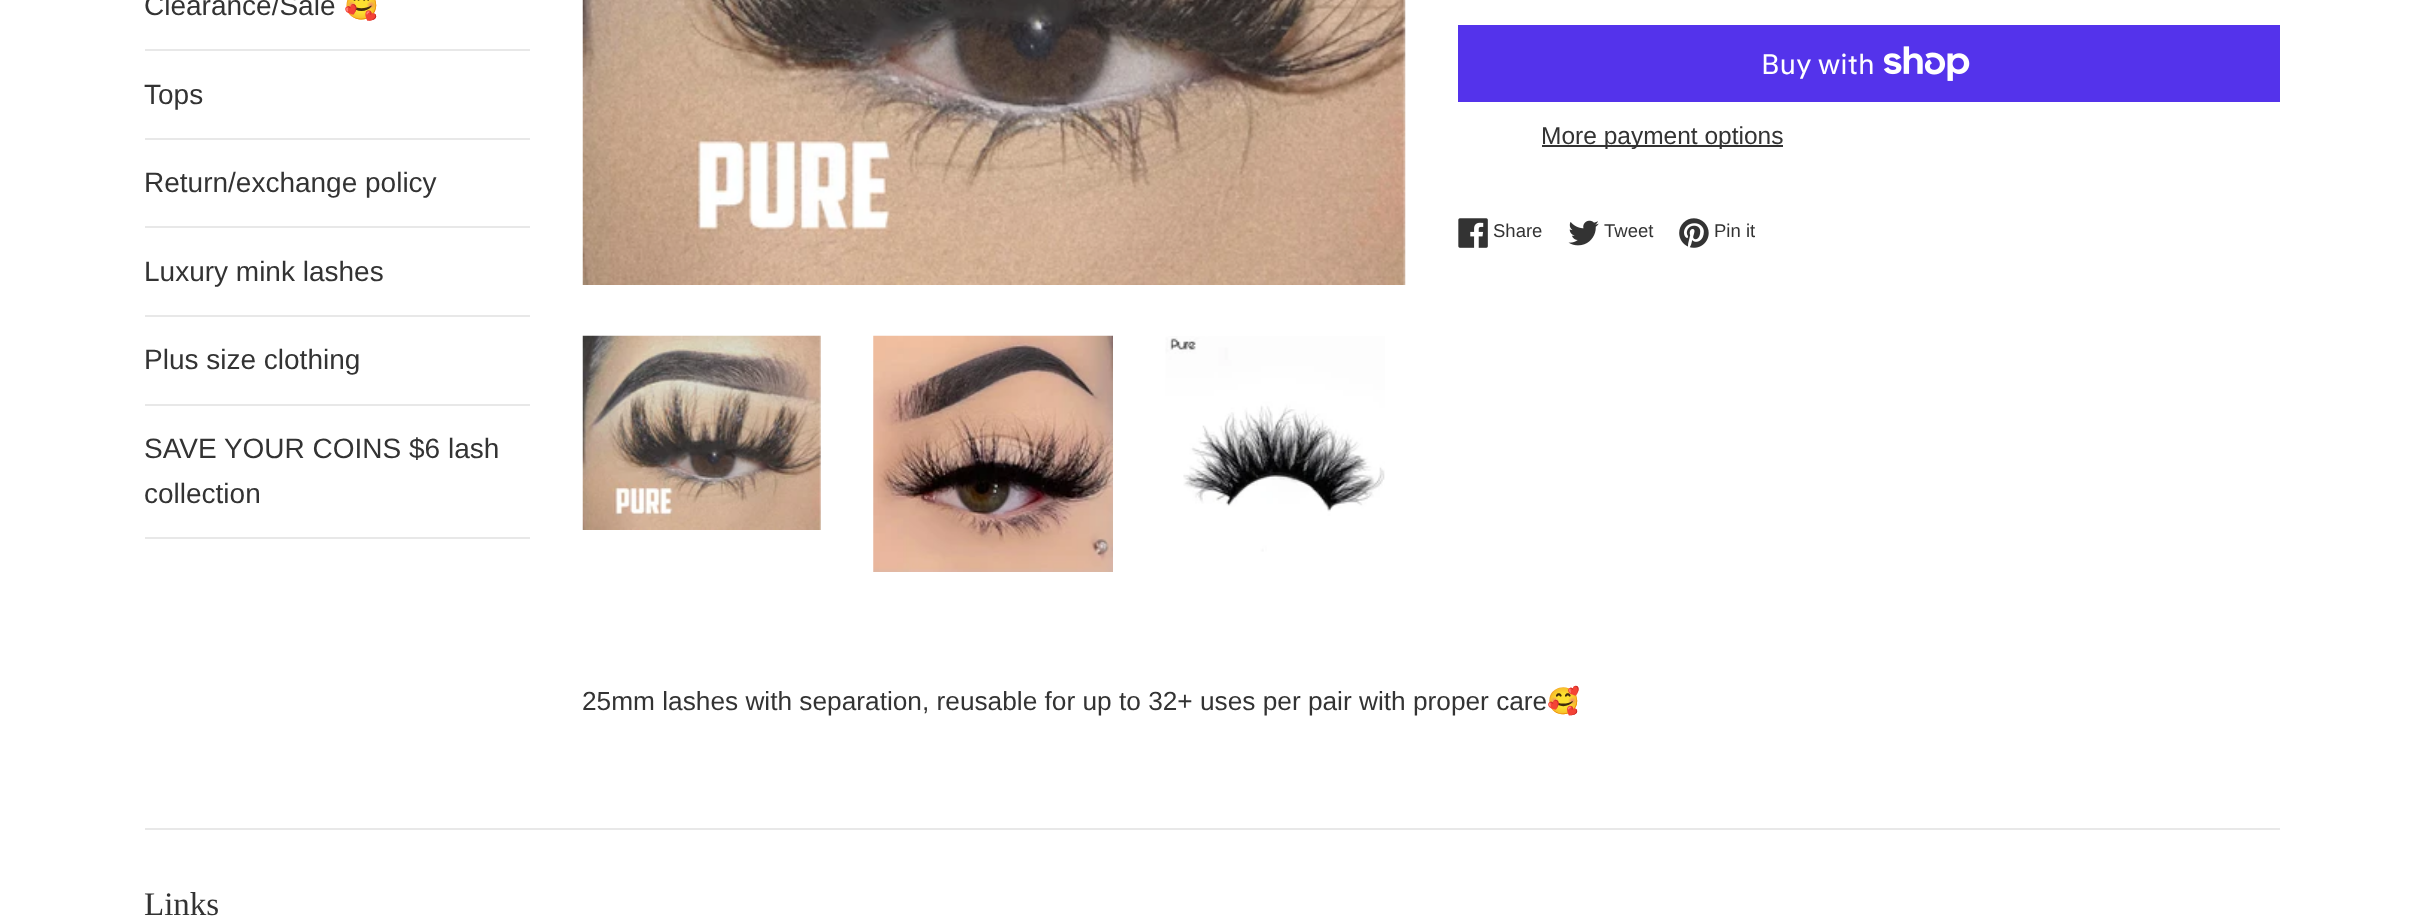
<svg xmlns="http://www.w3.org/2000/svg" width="2423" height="918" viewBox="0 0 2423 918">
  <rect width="100%" height="100%" fill="rgb(255,255,255)"/>
  <rect x="145" y="49" width="385" height="2" fill="rgb(232,232,232)"/>
  <text x="144" y="15" font-family="Liberation Sans" font-size="28" fill="rgb(51,51,51)">Clearance/Sale</text>
  <text x="344" y="15" font-family="Noto Color Emoji" font-size="28" fill="rgb(51,51,51)">🥰</text>
  <rect x="145" y="138" width="385" height="2" fill="rgb(232,232,232)"/>
  <text x="144" y="104" font-family="Liberation Sans" font-size="28" fill="rgb(51,51,51)">Tops</text>
  <rect x="145" y="226" width="385" height="2" fill="rgb(232,232,232)"/>
  <text x="144" y="192" font-family="Liberation Sans" font-size="28" fill="rgb(51,51,51)">Return/exchange policy</text>
  <rect x="145" y="315" width="385" height="2" fill="rgb(232,232,232)"/>
  <text x="144" y="281" font-family="Liberation Sans" font-size="28" fill="rgb(51,51,51)">Luxury mink lashes</text>
  <rect x="145" y="404" width="385" height="2" fill="rgb(232,232,232)"/>
  <text x="144" y="369" font-family="Liberation Sans" font-size="28" fill="rgb(51,51,51)">Plus size clothing</text>
  <rect x="145" y="537" width="385" height="2" fill="rgb(232,232,232)"/>
  <g font-family="Liberation Sans" font-size="28" fill="rgb(51,51,51)">
    <text>
      <tspan x="144" y="458">SAVE YOUR COINS $6 lash</tspan>
      <tspan x="144" y="503">collection</tspan>
    </text>
  </g>
  <image x="582" y="0" width="824" height="285" href="pic1.png"/>
  <image x="582" y="335" width="239" height="195" href="pic2.png"/>
  <image x="873" y="335" width="240" height="237" href="pic3.png"/>
  <image x="1165" y="336" width="220" height="216" href="pic4.png"/>
  <rect x="1458" y="25" width="822" height="77" fill="rgb(84,51,235)"/>
  <text x="1761" y="74" font-family="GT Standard" font-size="28" fill="rgb(255,255,255)">Buy with</text>
  <image x="1884" y="46" width="86" height="35" href="pic5.png"/>
  <rect x="1542" y="145" width="241" height="2" fill="rgb(51,51,51)"/>
  <text x="1541" y="144" font-family="Liberation Sans" font-size="24.5" fill="rgb(51,51,51)">More payment options</text>
  <image x="1458" y="218" width="30" height="30" href="pic6.png"/>
  <text x="1493" y="237" font-family="Liberation Sans" font-size="18.5" fill="rgb(51,51,51)">Share</text>
  <image x="1568" y="220" width="31" height="26" href="pic7.png"/>
  <text x="1604" y="237" font-family="Liberation Sans" font-size="18.5" fill="rgb(51,51,51)">Tweet</text>
  <image x="1679" y="218" width="30" height="30" href="pic8.png"/>
  <text x="1714" y="237" font-family="Liberation Sans" font-size="18.5" fill="rgb(51,51,51)">Pin it</text>
  <text x="582" y="710" font-family="Liberation Sans" font-size="26.25" fill="rgb(51,51,51)">25mm lashes with separation, reusable for up to 32+ uses per pair with proper care</text>
  <text x="1547" y="710" font-family="Noto Color Emoji" font-size="26.25" fill="rgb(51,51,51)">🥰</text>
  <rect x="145" y="828" width="2135" height="2" fill="rgb(232,232,232)"/>
  <text x="144" y="915" font-family="Liberation Serif" font-size="33" fill="rgb(51,51,51)">Links</text>
</svg>
